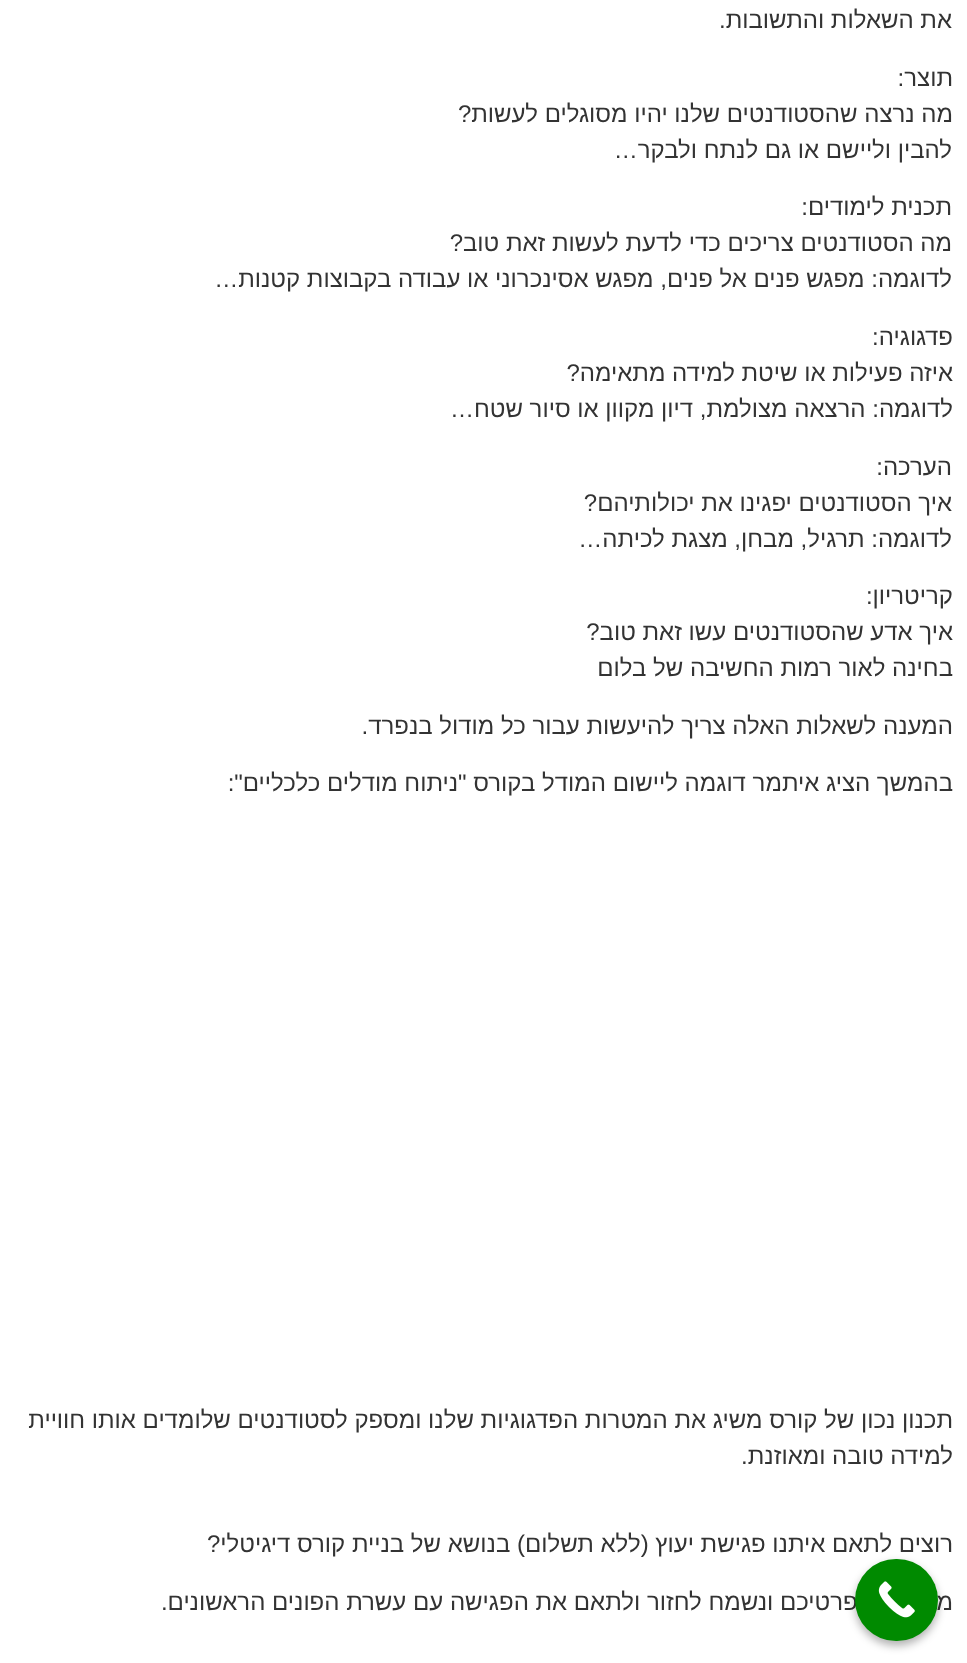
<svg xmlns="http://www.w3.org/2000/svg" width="967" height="1663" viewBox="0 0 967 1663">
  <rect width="100%" height="100%" fill="rgb(255,255,255)"/>
  <g font-family="Liberation Sans" font-size="24" direction="rtl" fill="rgb(51,51,51)">
    <text x="952" y="28">את השאלות והתשובות.</text>
    <text>
      <tspan x="953" y="86">תוצר:</tspan>
      <tspan x="953" y="122">מה נרצה שהסטודנטים שלנו יהיו מסוגלים לעשות?</tspan>
    </text>
    <text x="952" y="158">להבין וליישם או גם לנתח ולבקר…</text>
    <text>
      <tspan x="952" y="215">תכנית לימודים:</tspan>
      <tspan x="952" y="251">מה הסטודנטים צריכים כדי לדעת לעשות זאת טוב?</tspan>
      <tspan x="952" y="287">לדוגמה: מפגש פנים אל פנים, מפגש אסינכרוני או עבודה בקבוצות קטנות…</tspan>
    </text>
    <text>
      <tspan x="953" y="345">פדגוגיה:</tspan>
      <tspan x="953" y="381">איזה פעילות או שיטת למידה מתאימה?</tspan>
      <tspan x="953" y="417">לדוגמה: הרצאה מצולמת, דיון מקוון או סיור שטח…</tspan>
    </text>
    <text>
      <tspan x="952" y="475">הערכה:</tspan>
      <tspan x="952" y="511">איך הסטודנטים יפגינו את יכולותיהם?</tspan>
      <tspan x="952" y="547">לדוגמה: תרגיל, מבחן, מצגת לכיתה…</tspan>
    </text>
    <text>
      <tspan x="953" y="604">קריטריון:</tspan>
      <tspan x="953" y="640">איך אדע שהסטודנטים עשו זאת טוב?</tspan>
      <tspan x="953" y="676">בחינה לאור רמות החשיבה של בלום</tspan>
    </text>
    <text x="953" y="734">המענה לשאלות האלה צריך להיעשות עבור כל מודול בנפרד.</text>
    <text x="953" y="791">בהמשך הציג איתמר דוגמה ליישום המודל בקורס "ניתוח מודלים כלכליים":</text>
    <text>
      <tspan x="953" y="1428">תכנון נכון של קורס משיג את המטרות הפדגוגיות שלנו ומספק לסטודנטים שלומדים אותו חוויית</tspan>
      <tspan x="953" y="1464">למידה טובה ומאוזנת.</tspan>
    </text>
    <text x="953" y="1552">רוצים לתאם איתנו פגישת יעוץ (ללא תשלום) בנושא של בניית קורס דיגיטלי?</text>
    <text x="953" y="1610">מלאו את פרטיכם ונשמח לחזור ולתאם את הפגישה עם עשרת הפונים הראשונים.</text>
  </g>
  <rect x="855" y="1563" width="83" height="83" rx="41.5" fill="rgba(0,0,0,0.3)" filter="blur(4.5px)"/>
  <rect x="855" y="1559" width="83" height="82" rx="41" fill="rgb(0,138,0)"/>
  <image x="878" y="1581" width="37" height="37" href="pic1.png"/>
</svg>
